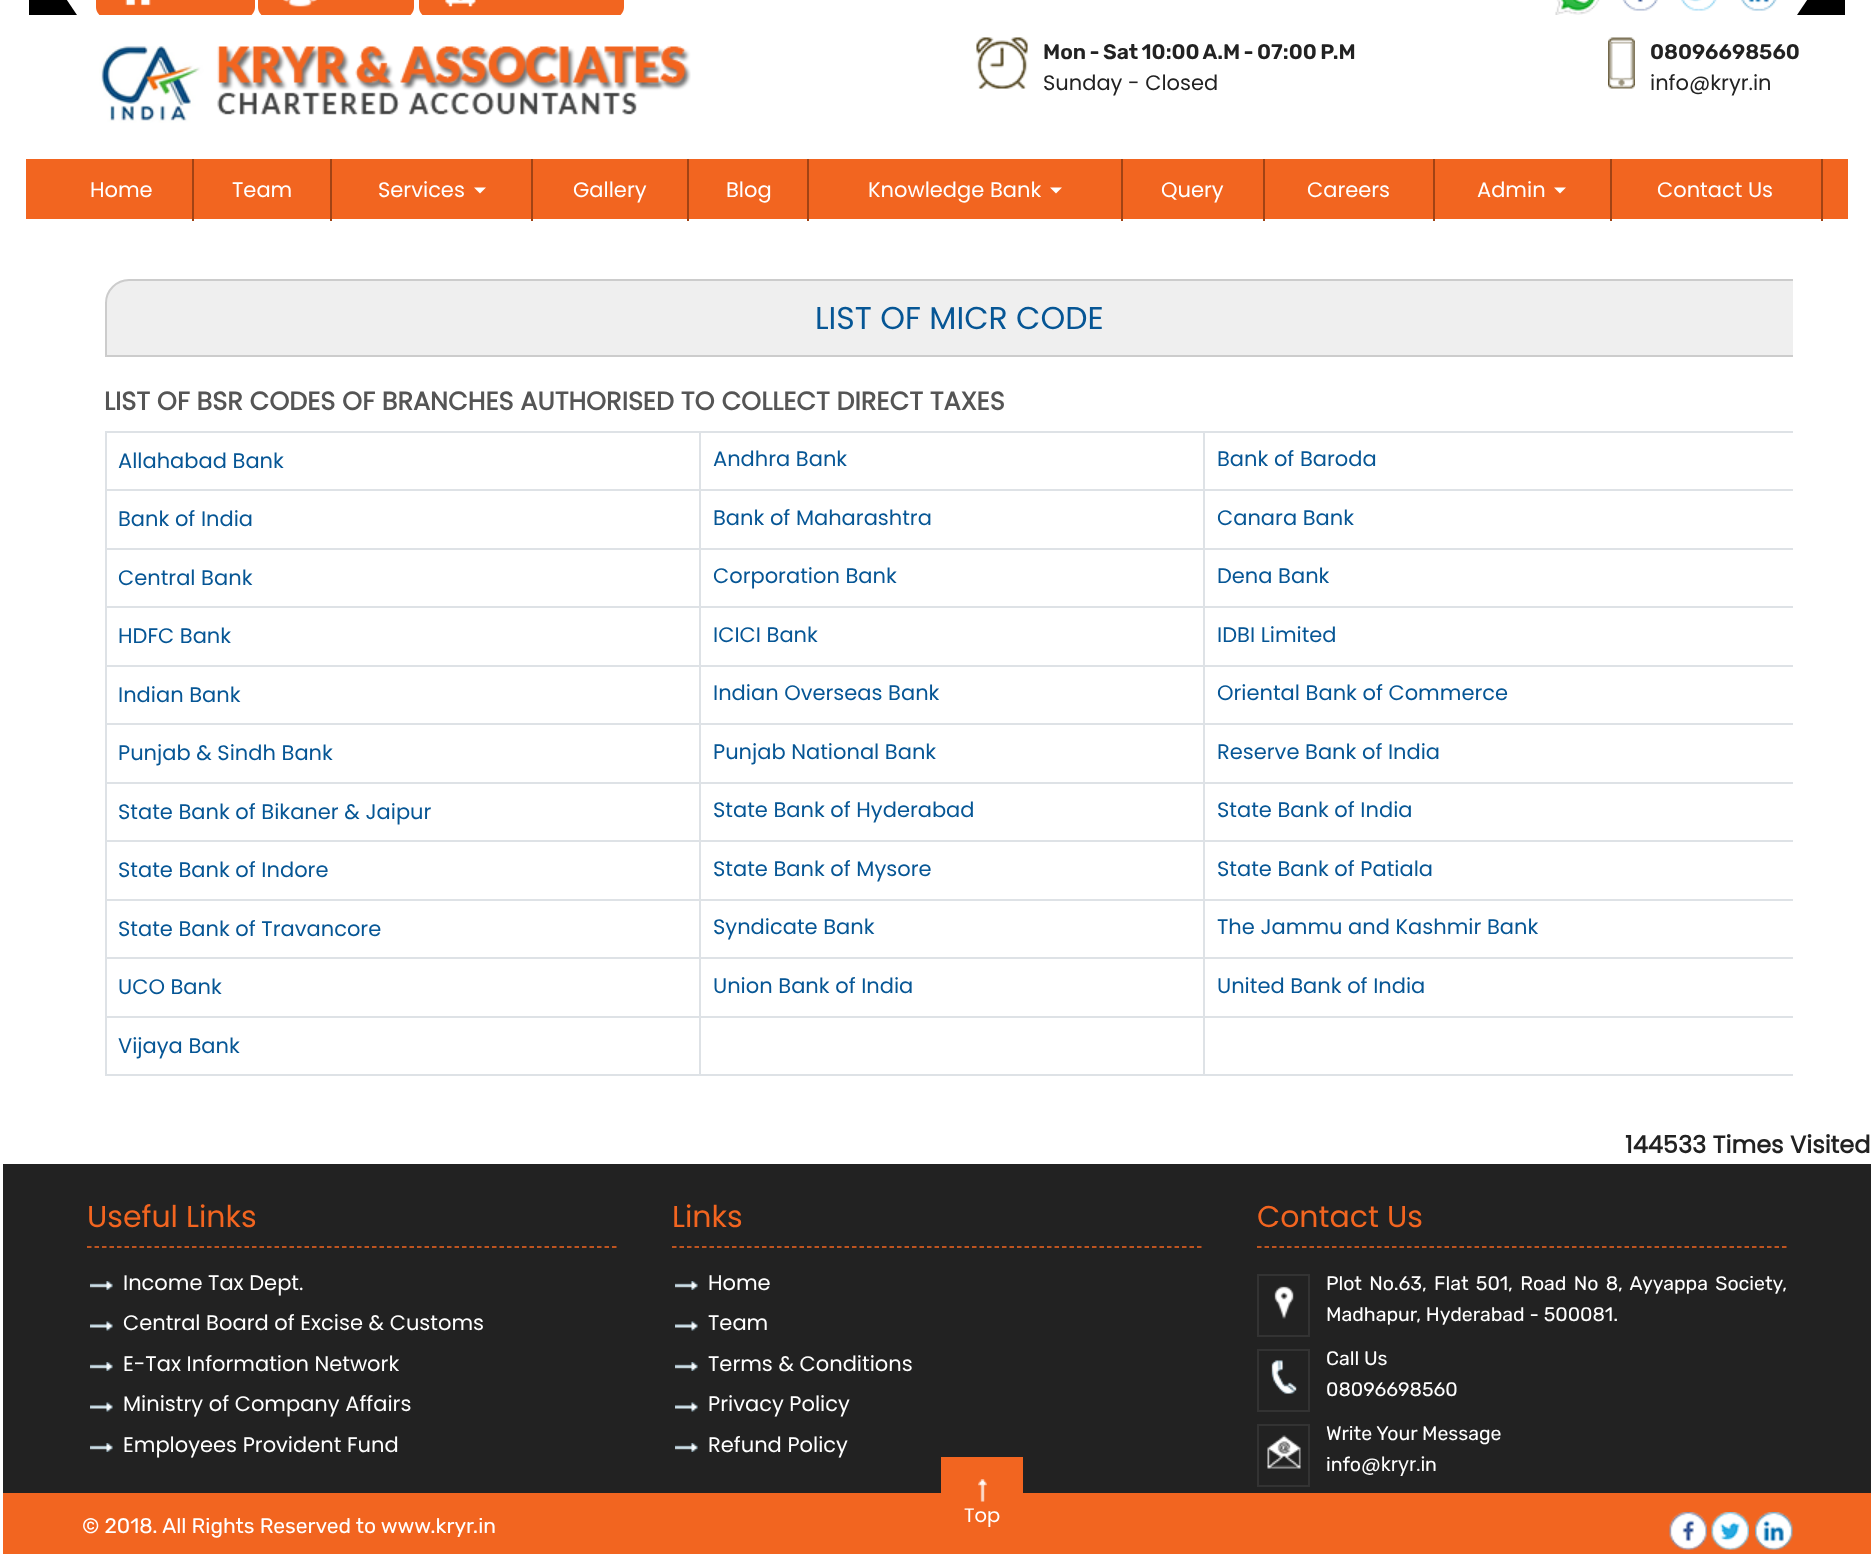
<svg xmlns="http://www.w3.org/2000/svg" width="1873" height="1554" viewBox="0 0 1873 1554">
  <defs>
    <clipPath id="clip1"><rect x="29" y="0" width="1816" height="15"/></clipPath>
    <clipPath id="clip2"><rect x="83" y="219" width="1710" height="887"/></clipPath>
  </defs>
  <rect width="100%" height="100%" fill="rgb(255,255,255)"/>
  <rect x="29" y="0" width="1816" height="15" fill="rgb(0,0,0)"/>
  <rect x="251" y="0" width="1499" height="15" fill="rgb(255,255,255)"/>
  <g clip-path="url(#clip1)">
    <path d="M40-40H92L131 18H79Z" fill="rgb(255,255,255)"/>
    <rect x="96" y="-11" width="159" height="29" rx="11" fill="rgb(242,101,32)"/>
  </g>
  <image x="125" y="0" width="26" height="6" href="pic1.png"/>
  <g clip-path="url(#clip1)">
    <rect x="258" y="-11" width="156" height="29" rx="11" fill="rgb(242,101,32)"/>
  </g>
  <image x="283" y="0" width="34" height="7" href="pic2.png"/>
  <g clip-path="url(#clip1)">
    <rect x="419" y="-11" width="205" height="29" rx="11" fill="rgb(242,101,32)"/>
  </g>
  <image x="445" y="0" width="31" height="7" href="pic3.png"/>
  <image x="1555" y="0" width="45" height="15" href="pic4.png"/>
  <image x="1622" y="0" width="36" height="11" href="pic5.png"/>
  <image x="1681" y="0" width="36" height="11" href="pic6.png"/>
  <g clip-path="url(#clip1)">
    <path d="M1781-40H1834L1795 18H1742Z" fill="rgb(255,255,255)"/>
  </g>
  <image x="1741" y="0" width="36" height="11" href="pic7.png"/>
  <image x="99" y="46" width="592" height="77" href="pic8.png"/>
  <image x="976" y="37" width="52" height="52" href="pic9.png"/>
  <text x="1043" y="59" word-spacing="-1.25" font-family="Rubik" font-size="21" font-weight="600" fill="rgb(34,34,34)">Mon - Sat 10:00 A.M - 07:00 P.M</text>
  <text x="1043" y="90" font-family="Poppins" font-size="21" fill="rgb(34,34,34)">Sunday - Closed</text>
  <image x="1608" y="37" width="27" height="52" href="pic10.png"/>
  <text x="1650" y="59" font-family="Rubik" font-size="21" font-weight="600" fill="rgb(34,34,34)">08096698560</text>
  <text x="1650" y="90" font-family="Poppins" font-size="21" fill="rgb(34,34,34)">info@kryr.in</text>
  <rect x="26" y="159" width="1822" height="60" fill="rgb(242,101,32)"/>
  <rect x="192" y="159" width="2" height="62" fill="rgb(162,67,20)"/>
  <text x="90" y="197" font-family="Poppins" font-size="21" fill="rgb(255,255,255)">Home</text>
  <rect x="330" y="159" width="2" height="62" fill="rgb(162,67,20)"/>
  <text x="232" y="197" font-family="Poppins" font-size="21" fill="rgb(255,255,255)">Team</text>
  <rect x="531" y="159" width="2" height="62" fill="rgb(162,67,20)"/>
  <text x="378" y="197" font-family="Poppins" font-size="21" fill="rgb(255,255,255)">Services</text>
  <path d="M474 187.5H486L480 193.5Z" fill="rgb(255,255,255)"/>
  <rect x="687" y="159" width="2" height="62" fill="rgb(162,67,20)"/>
  <text x="573" y="197" font-family="Poppins" font-size="21" fill="rgb(255,255,255)">Gallery</text>
  <rect x="807" y="159" width="2" height="62" fill="rgb(162,67,20)"/>
  <text x="726" y="197" font-family="Poppins" font-size="21" fill="rgb(255,255,255)">Blog</text>
  <rect x="1121" y="159" width="2" height="62" fill="rgb(162,67,20)"/>
  <text x="868" y="197" font-family="Poppins" font-size="21" fill="rgb(255,255,255)">Knowledge Bank</text>
  <path d="M1050 187.5H1062L1056 193.5Z" fill="rgb(255,255,255)"/>
  <rect x="1263" y="159" width="2" height="62" fill="rgb(162,67,20)"/>
  <text x="1161" y="197" font-family="Poppins" font-size="21" fill="rgb(255,255,255)">Query</text>
  <rect x="1433" y="159" width="2" height="62" fill="rgb(162,67,20)"/>
  <text x="1307" y="197" font-family="Poppins" font-size="21" fill="rgb(255,255,255)">Careers</text>
  <rect x="1610" y="159" width="2" height="62" fill="rgb(162,67,20)"/>
  <text x="1477" y="197" font-family="Poppins" font-size="21" fill="rgb(255,255,255)">Admin</text>
  <path d="M1554 187.5H1566L1560 193.5Z" fill="rgb(255,255,255)"/>
  <rect x="1821" y="159" width="2" height="62" fill="rgb(162,67,20)"/>
  <text x="1657" y="197" font-family="Poppins" font-size="21" fill="rgb(255,255,255)">Contact Us</text>
  <g clip-path="url(#clip2)">
    <path d="M129 280H1791C1803.5 280 1814 290.5 1814 303V356H106V303C106 290.5 116.5 280 129 280Z" fill="rgb(239,239,239)" stroke="rgb(204,204,204)" stroke-width="2"/>
  </g>
  <text x="815" y="329" font-family="Poppins" font-size="31.5" fill="rgb(6,86,149)">LIST OF MICR CODE</text>
  <text x="104" y="410" font-family="Poppins" font-size="25.5" font-weight="bold" fill="rgb(85,85,85)">LIST OF BSR CODES OF BRANCHES AUTHORISED TO COLLECT DIRECT TAXES</text>
  <rect x="105" y="431" width="1688" height="2" fill="rgb(222,226,230)"/>
  <rect x="105" y="1074" width="1688" height="2" fill="rgb(222,226,230)"/>
  <rect x="105" y="431" width="2" height="645" fill="rgb(222,226,230)"/>
  <text x="118" y="468" font-family="Poppins" font-size="21" fill="rgb(6,86,149)">Allahabad Bank</text>
  <rect x="1203" y="489" width="590" height="2" fill="rgb(222,226,230)"/>
  <rect x="1203" y="548" width="590" height="2" fill="rgb(222,226,230)"/>
  <rect x="1203" y="606" width="590" height="2" fill="rgb(222,226,230)"/>
  <rect x="1203" y="665" width="590" height="2" fill="rgb(222,226,230)"/>
  <rect x="1203" y="723" width="590" height="2" fill="rgb(222,226,230)"/>
  <rect x="1203" y="782" width="590" height="2" fill="rgb(222,226,230)"/>
  <rect x="1203" y="840" width="590" height="2" fill="rgb(222,226,230)"/>
  <rect x="1203" y="899" width="590" height="2" fill="rgb(222,226,230)"/>
  <rect x="1203" y="957" width="590" height="2" fill="rgb(222,226,230)"/>
  <rect x="1203" y="1016" width="590" height="2" fill="rgb(222,226,230)"/>
  <rect x="1203" y="1016" width="2" height="60" fill="rgb(222,226,230)"/>
  <rect x="699" y="1016" width="506" height="2" fill="rgb(222,226,230)"/>
  <rect x="1203" y="957" width="2" height="60" fill="rgb(222,226,230)"/>
  <rect x="699" y="957" width="506" height="2" fill="rgb(222,226,230)"/>
  <rect x="1203" y="899" width="2" height="60" fill="rgb(222,226,230)"/>
  <rect x="699" y="899" width="506" height="2" fill="rgb(222,226,230)"/>
  <rect x="1203" y="840" width="2" height="60" fill="rgb(222,226,230)"/>
  <rect x="699" y="840" width="506" height="2" fill="rgb(222,226,230)"/>
  <rect x="1203" y="782" width="2" height="60" fill="rgb(222,226,230)"/>
  <rect x="699" y="782" width="506" height="2" fill="rgb(222,226,230)"/>
  <rect x="1203" y="723" width="2" height="60" fill="rgb(222,226,230)"/>
  <rect x="699" y="723" width="506" height="2" fill="rgb(222,226,230)"/>
  <rect x="1203" y="665" width="2" height="60" fill="rgb(222,226,230)"/>
  <rect x="699" y="665" width="506" height="2" fill="rgb(222,226,230)"/>
  <rect x="1203" y="606" width="2" height="60" fill="rgb(222,226,230)"/>
  <rect x="699" y="606" width="506" height="2" fill="rgb(222,226,230)"/>
  <rect x="1203" y="548" width="2" height="60" fill="rgb(222,226,230)"/>
  <rect x="699" y="548" width="506" height="2" fill="rgb(222,226,230)"/>
  <rect x="1203" y="489" width="2" height="60" fill="rgb(222,226,230)"/>
  <rect x="699" y="489" width="506" height="2" fill="rgb(222,226,230)"/>
  <rect x="699" y="1016" width="2" height="60" fill="rgb(222,226,230)"/>
  <rect x="105" y="1016" width="596" height="2" fill="rgb(222,226,230)"/>
  <rect x="699" y="957" width="2" height="60" fill="rgb(222,226,230)"/>
  <rect x="105" y="957" width="596" height="2" fill="rgb(222,226,230)"/>
  <rect x="699" y="899" width="2" height="60" fill="rgb(222,226,230)"/>
  <rect x="105" y="899" width="596" height="2" fill="rgb(222,226,230)"/>
  <rect x="699" y="840" width="2" height="60" fill="rgb(222,226,230)"/>
  <rect x="105" y="840" width="596" height="2" fill="rgb(222,226,230)"/>
  <rect x="699" y="782" width="2" height="60" fill="rgb(222,226,230)"/>
  <rect x="105" y="782" width="596" height="2" fill="rgb(222,226,230)"/>
  <rect x="699" y="723" width="2" height="60" fill="rgb(222,226,230)"/>
  <rect x="105" y="723" width="596" height="2" fill="rgb(222,226,230)"/>
  <rect x="699" y="665" width="2" height="60" fill="rgb(222,226,230)"/>
  <rect x="105" y="665" width="596" height="2" fill="rgb(222,226,230)"/>
  <rect x="699" y="606" width="2" height="60" fill="rgb(222,226,230)"/>
  <rect x="105" y="606" width="596" height="2" fill="rgb(222,226,230)"/>
  <rect x="699" y="548" width="2" height="60" fill="rgb(222,226,230)"/>
  <rect x="105" y="548" width="596" height="2" fill="rgb(222,226,230)"/>
  <rect x="699" y="489" width="2" height="60" fill="rgb(222,226,230)"/>
  <rect x="105" y="489" width="596" height="2" fill="rgb(222,226,230)"/>
  <rect x="699" y="431" width="2" height="60" fill="rgb(222,226,230)"/>
  <text x="713" y="466" font-family="Poppins" font-size="21" fill="rgb(6,86,149)">Andhra Bank</text>
  <rect x="1203" y="431" width="2" height="60" fill="rgb(222,226,230)"/>
  <g font-family="Poppins" font-size="21" fill="rgb(6,86,149)">
    <text x="1217" y="466">Bank of Baroda</text>
    <text x="118" y="526">Bank of India</text>
    <text x="713" y="525">Bank of Maharashtra</text>
    <text x="1217" y="525">Canara Bank</text>
    <text x="118" y="585">Central Bank</text>
    <text x="713" y="583">Corporation Bank</text>
    <text x="1217" y="583">Dena Bank</text>
    <text x="118" y="643">HDFC Bank</text>
    <text x="713" y="642">ICICI Bank</text>
    <text x="1217" y="642">IDBI Limited</text>
    <text x="118" y="702">Indian Bank</text>
    <text x="713" y="700">Indian Overseas Bank</text>
    <text x="1217" y="700">Oriental Bank of Commerce</text>
    <text x="118" y="760">Punjab &amp; Sindh Bank</text>
    <text x="713" y="759">Punjab National Bank</text>
    <text x="1217" y="759">Reserve Bank of India</text>
    <text x="118" y="819">State Bank of Bikaner &amp; Jaipur</text>
    <text x="713" y="817">State Bank of Hyderabad</text>
    <text x="1217" y="817">State Bank of India</text>
    <text x="118" y="877">State Bank of Indore</text>
    <text x="713" y="876">State Bank of Mysore</text>
    <text x="1217" y="876">State Bank of Patiala</text>
    <text x="118" y="936">State Bank of Travancore</text>
    <text x="713" y="934">Syndicate Bank</text>
    <text x="1217" y="934">The Jammu and Kashmir Bank</text>
    <text x="118" y="994">UCO Bank</text>
    <text x="713" y="993">Union Bank of India</text>
    <text x="1217" y="993">United Bank of India</text>
    <text x="118" y="1053">Vijaya Bank</text>
  </g>
  <text x="1625" y="1153" font-family="Poppins" font-size="24" font-weight="bold" fill="rgb(34,34,34)">144533 Times Visited</text>
  <rect x="3" y="1164" width="1868" height="329" fill="rgb(34,34,34)"/>
  <path d="M87 1247H616.5" fill="none" stroke="rgb(242,101,32)" stroke-width="1.5" stroke-dasharray="4.5 3"/>
  <text x="87" y="1227" font-family="Poppins" font-size="30" fill="rgb(242,101,32)">Useful Links</text>
  <image x="90" y="1281" width="23" height="9" href="pic11.png"/>
  <text x="123" y="1290" font-family="Poppins" font-size="21" fill="rgb(255,255,255)">Income Tax Dept.</text>
  <image x="90" y="1321" width="23" height="10" href="pic12.png"/>
  <text x="123" y="1330" font-family="Poppins" font-size="21" fill="rgb(255,255,255)">Central Board of Excise &amp; Customs</text>
  <image x="90" y="1362" width="23" height="9" href="pic11.png"/>
  <text x="123" y="1371" font-family="Poppins" font-size="21" fill="rgb(255,255,255)">E-Tax Information Network</text>
  <image x="90" y="1402" width="23" height="10" href="pic12.png"/>
  <text x="123" y="1411" font-family="Poppins" font-size="21" fill="rgb(255,255,255)">Ministry of Company Affairs</text>
  <image x="90" y="1443" width="23" height="9" href="pic11.png"/>
  <text x="123" y="1452" font-family="Poppins" font-size="21" fill="rgb(255,255,255)">Employees Provident Fund</text>
  <path d="M672 1247H1201.5" fill="none" stroke="rgb(242,101,32)" stroke-width="1.5" stroke-dasharray="4.5 3"/>
  <text x="672" y="1227" font-family="Poppins" font-size="30" fill="rgb(242,101,32)">Links</text>
  <image x="675" y="1281" width="23" height="9" href="pic11.png"/>
  <text x="708" y="1290" font-family="Poppins" font-size="21" fill="rgb(255,255,255)">Home</text>
  <image x="675" y="1321" width="23" height="10" href="pic12.png"/>
  <text x="708" y="1330" font-family="Poppins" font-size="21" fill="rgb(255,255,255)">Team</text>
  <image x="675" y="1362" width="23" height="9" href="pic11.png"/>
  <text x="708" y="1371" font-family="Poppins" font-size="21" fill="rgb(255,255,255)">Terms &amp; Conditions</text>
  <image x="675" y="1402" width="23" height="10" href="pic12.png"/>
  <text x="708" y="1411" font-family="Poppins" font-size="21" fill="rgb(255,255,255)">Privacy Policy</text>
  <image x="675" y="1443" width="23" height="9" href="pic11.png"/>
  <text x="708" y="1452" font-family="Poppins" font-size="21" fill="rgb(255,255,255)">Refund Policy</text>
  <path d="M1257 1247H1786.5" fill="none" stroke="rgb(242,101,32)" stroke-width="1.5" stroke-dasharray="4.5 3"/>
  <text x="1257" y="1227" font-family="Poppins" font-size="30" fill="rgb(242,101,32)">Contact Us</text>
  <rect x="1258" y="1275" width="51" height="61" fill="none" stroke="rgb(51,51,51)" stroke-width="2"/>
  <image x="1274" y="1286" width="20" height="33" href="pic13.png"/>
  <g font-family="Rubik" font-size="19.5" fill="rgb(255,255,255)">
    <text>
      <tspan x="1326" y="1290" word-spacing="2.5">Plot No.63, Flat 501, Road No 8, Ayyappa Society,</tspan>
      <tspan x="1326" y="1321">Madhapur, Hyderabad - 500081.</tspan>
    </text>
  </g>
  <rect x="1258" y="1350" width="51" height="61" fill="none" stroke="rgb(51,51,51)" stroke-width="2"/>
  <image x="1271" y="1360" width="26" height="34" href="pic14.png"/>
  <g font-family="Rubik" font-size="19.5" fill="rgb(255,255,255)">
    <text>
      <tspan x="1326" y="1365">Call Us</tspan>
      <tspan x="1326" y="1396">08096698560</tspan>
    </text>
  </g>
  <rect x="1258" y="1425" width="51" height="61" fill="none" stroke="rgb(51,51,51)" stroke-width="2"/>
  <image x="1267" y="1435" width="34" height="34" href="pic15.png"/>
  <g font-family="Rubik" font-size="19.5" fill="rgb(255,255,255)">
    <text>
      <tspan x="1326" y="1440">Write Your Message</tspan>
      <tspan x="1326" y="1471">info</tspan>
    </text>
  </g>
  <text x="1361" y="1471" font-family="Poppins" font-size="19.5" fill="rgb(255,255,255)">@kryr.i</text>
  <text x="1425" y="1471" font-family="Rubik" font-size="19.5" fill="rgb(255,255,255)">n</text>
  <rect x="3" y="1493" width="1868" height="61" fill="rgb(242,101,32)"/>
  <text x="82" y="1533" font-family="Rubik" font-size="21" fill="rgb(255,255,255)">© 2018. All Rights Reserved to www.kryr.in</text>
  <rect x="941" y="1457" width="82" height="36" fill="rgb(242,101,32)"/>
  <image x="978" y="1479" width="9" height="23" href="pic16.png"/>
  <text x="964" y="1522" font-family="Poppins" font-size="19.5" fill="rgb(255,255,255)">Top</text>
  <image x="1669" y="1512" width="38" height="38" href="pic17.png"/>
  <image x="1711" y="1512" width="38" height="38" href="pic18.png"/>
  <image x="1755" y="1512" width="38" height="38" href="pic19.png"/>
</svg>
